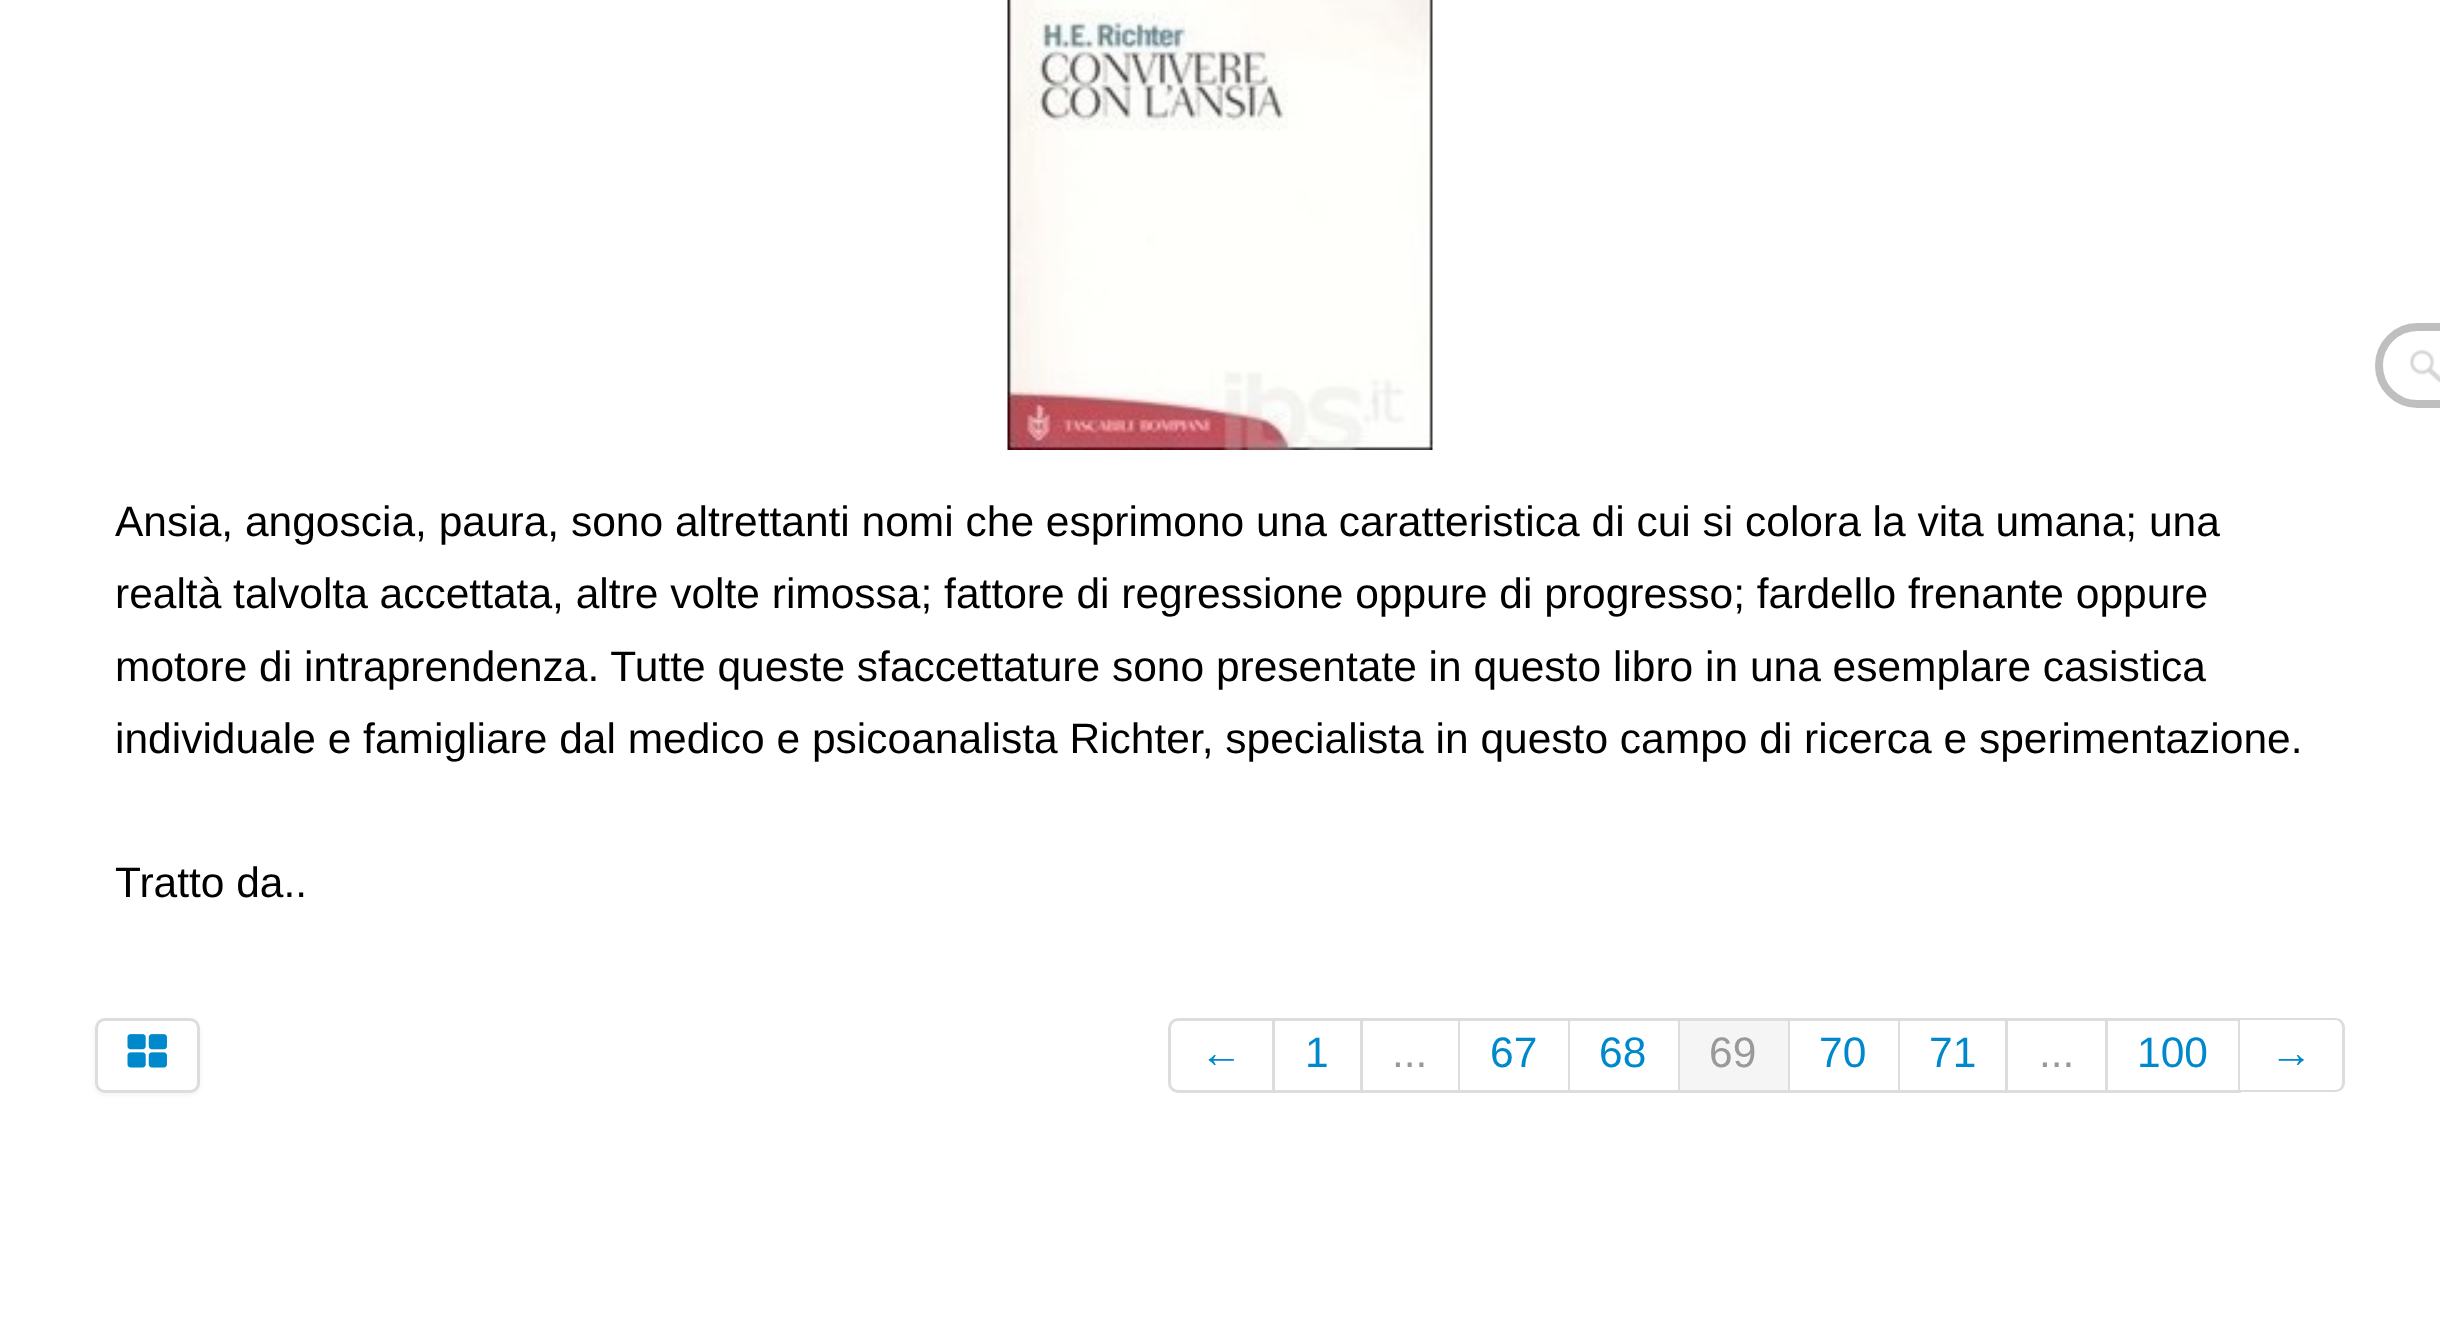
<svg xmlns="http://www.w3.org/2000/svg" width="2440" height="1332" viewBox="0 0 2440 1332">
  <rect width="100%" height="100%" fill="rgb(255,255,255)"/>
  <image x="2410" y="349" width="30" height="34" href="pic1.png"/>
  <rect x="2379" y="327" width="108" height="77" rx="38.5" fill="none" stroke="rgb(191,191,191)" stroke-width="8"/>
  <image x="1007" y="0" width="426" height="450" href="pic2.png"/>
  <g font-family="Liberation Sans" font-size="42.5" fill="rgb(0,0,0)">
    <text>
      <tspan x="115" y="536">Ansia, angoscia, paura, sono altrettanti nomi che esprimono una caratteristica di cui si colora la vita umana; una</tspan>
      <tspan x="115" y="608">realtà talvolta accettata, altre volte rimossa; fattore di regressione oppure di progresso; fardello frenante oppure</tspan>
      <tspan x="115" y="681">motore di intraprendenza. Tutte queste sfaccettature sono presentate in questo libro in una esemplare casistica</tspan>
      <tspan x="115" y="753">individuale e famigliare dal medico e psicoanalista Richter, specialista in questo campo di ricerca e sperimentazione.</tspan>
    </text>
    <text x="115" y="897">Tratto da..</text>
  </g>
  <rect x="95" y="1020" width="105" height="75" rx="10" fill="rgba(0,0,0,0.05)" filter="blur(2.5px)"/>
  <rect x="96.5" y="1019.5" width="102" height="72" rx="8.5" fill="rgb(255,255,255)" stroke="rgb(221,221,221)" stroke-width="3"/>
  <image x="127" y="1034" width="40" height="34" href="pic3.png"/>
  <path d="M1178 1019.5H1273.5V1091.5H1178C1173.5 1091.5 1169.5 1087.5 1169.5 1083V1028C1169.5 1023.5 1173.5 1019.5 1178 1019.5Z" fill="none" stroke="rgb(221,221,221)" stroke-width="3"/>
  <text x="1200" y="1067" font-family="Liberation Sans" font-size="42.5" fill="rgb(0,136,204)">←</text>
  <rect x="1275" y="1018" width="965" height="3" fill="rgb(221,221,221)"/>
  <rect x="1360" y="1018" width="3" height="75" fill="rgb(221,221,221)"/>
  <rect x="1275" y="1090" width="88" height="3" fill="rgb(221,221,221)"/>
  <text x="1305" y="1067" font-family="Liberation Sans" font-size="42.5" fill="rgb(0,136,204)">1</text>
  <rect x="1458" y="1018" width="2" height="75" fill="rgb(221,221,221)"/>
  <rect x="1363" y="1090" width="97" height="3" fill="rgb(221,221,221)"/>
  <text x="1392" y="1067" font-family="Liberation Sans" font-size="42.5" fill="rgb(153,153,153)">...</text>
  <rect x="1568" y="1018" width="2" height="75" fill="rgb(221,221,221)"/>
  <rect x="1460" y="1090" width="110" height="3" fill="rgb(221,221,221)"/>
  <text x="1490" y="1067" font-family="Liberation Sans" font-size="42.5" fill="rgb(0,136,204)">67</text>
  <rect x="1678" y="1018" width="2" height="75" fill="rgb(221,221,221)"/>
  <rect x="1570" y="1090" width="110" height="3" fill="rgb(221,221,221)"/>
  <text x="1599" y="1067" font-family="Liberation Sans" font-size="42.5" fill="rgb(0,136,204)">68</text>
  <rect x="1680" y="1021" width="108" height="69" fill="rgb(245,245,245)"/>
  <rect x="1788" y="1018" width="2" height="75" fill="rgb(221,221,221)"/>
  <rect x="1680" y="1090" width="110" height="3" fill="rgb(221,221,221)"/>
  <text x="1709" y="1067" font-family="Liberation Sans" font-size="42.5" fill="rgb(153,153,153)">69</text>
  <rect x="1898" y="1018" width="2" height="75" fill="rgb(221,221,221)"/>
  <rect x="1790" y="1090" width="110" height="3" fill="rgb(221,221,221)"/>
  <text x="1819" y="1067" font-family="Liberation Sans" font-size="42.5" fill="rgb(0,136,204)">70</text>
  <rect x="2005" y="1018" width="3" height="75" fill="rgb(221,221,221)"/>
  <rect x="1900" y="1090" width="108" height="3" fill="rgb(221,221,221)"/>
  <text x="1929" y="1067" font-family="Liberation Sans" font-size="42.5" fill="rgb(0,136,204)">71</text>
  <rect x="2105" y="1018" width="3" height="75" fill="rgb(221,221,221)"/>
  <rect x="2008" y="1090" width="100" height="3" fill="rgb(221,221,221)"/>
  <text x="2039" y="1067" font-family="Liberation Sans" font-size="42.5" fill="rgb(153,153,153)">...</text>
  <rect x="2238" y="1018" width="3" height="75" fill="rgb(221,221,221)"/>
  <rect x="2108" y="1090" width="132" height="3" fill="rgb(221,221,221)"/>
  <text x="2137" y="1067" font-family="Liberation Sans" font-size="42.5" fill="rgb(0,136,204)">100</text>
  <path d="M2240 1020H2335C2339.5 1020 2343 1023.5 2343 1028V1082C2343 1086.5 2339.5 1090 2335 1090H2240Z" fill="rgb(255,255,255)"/>
  <path d="M2240 1018H2335C2341 1018 2345 1022 2345 1028V1082C2345 1088 2341 1092 2335 1092H2240ZM2240 1020H2335C2339 1020 2342 1023 2342 1028V1082C2342 1087 2339 1090 2335 1090H2240Z" fill="rgb(221,221,221)" fill-rule="evenodd"/>
  <text x="2270" y="1067" font-family="Liberation Sans" font-size="42.5" fill="rgb(0,136,204)">→</text>
</svg>
